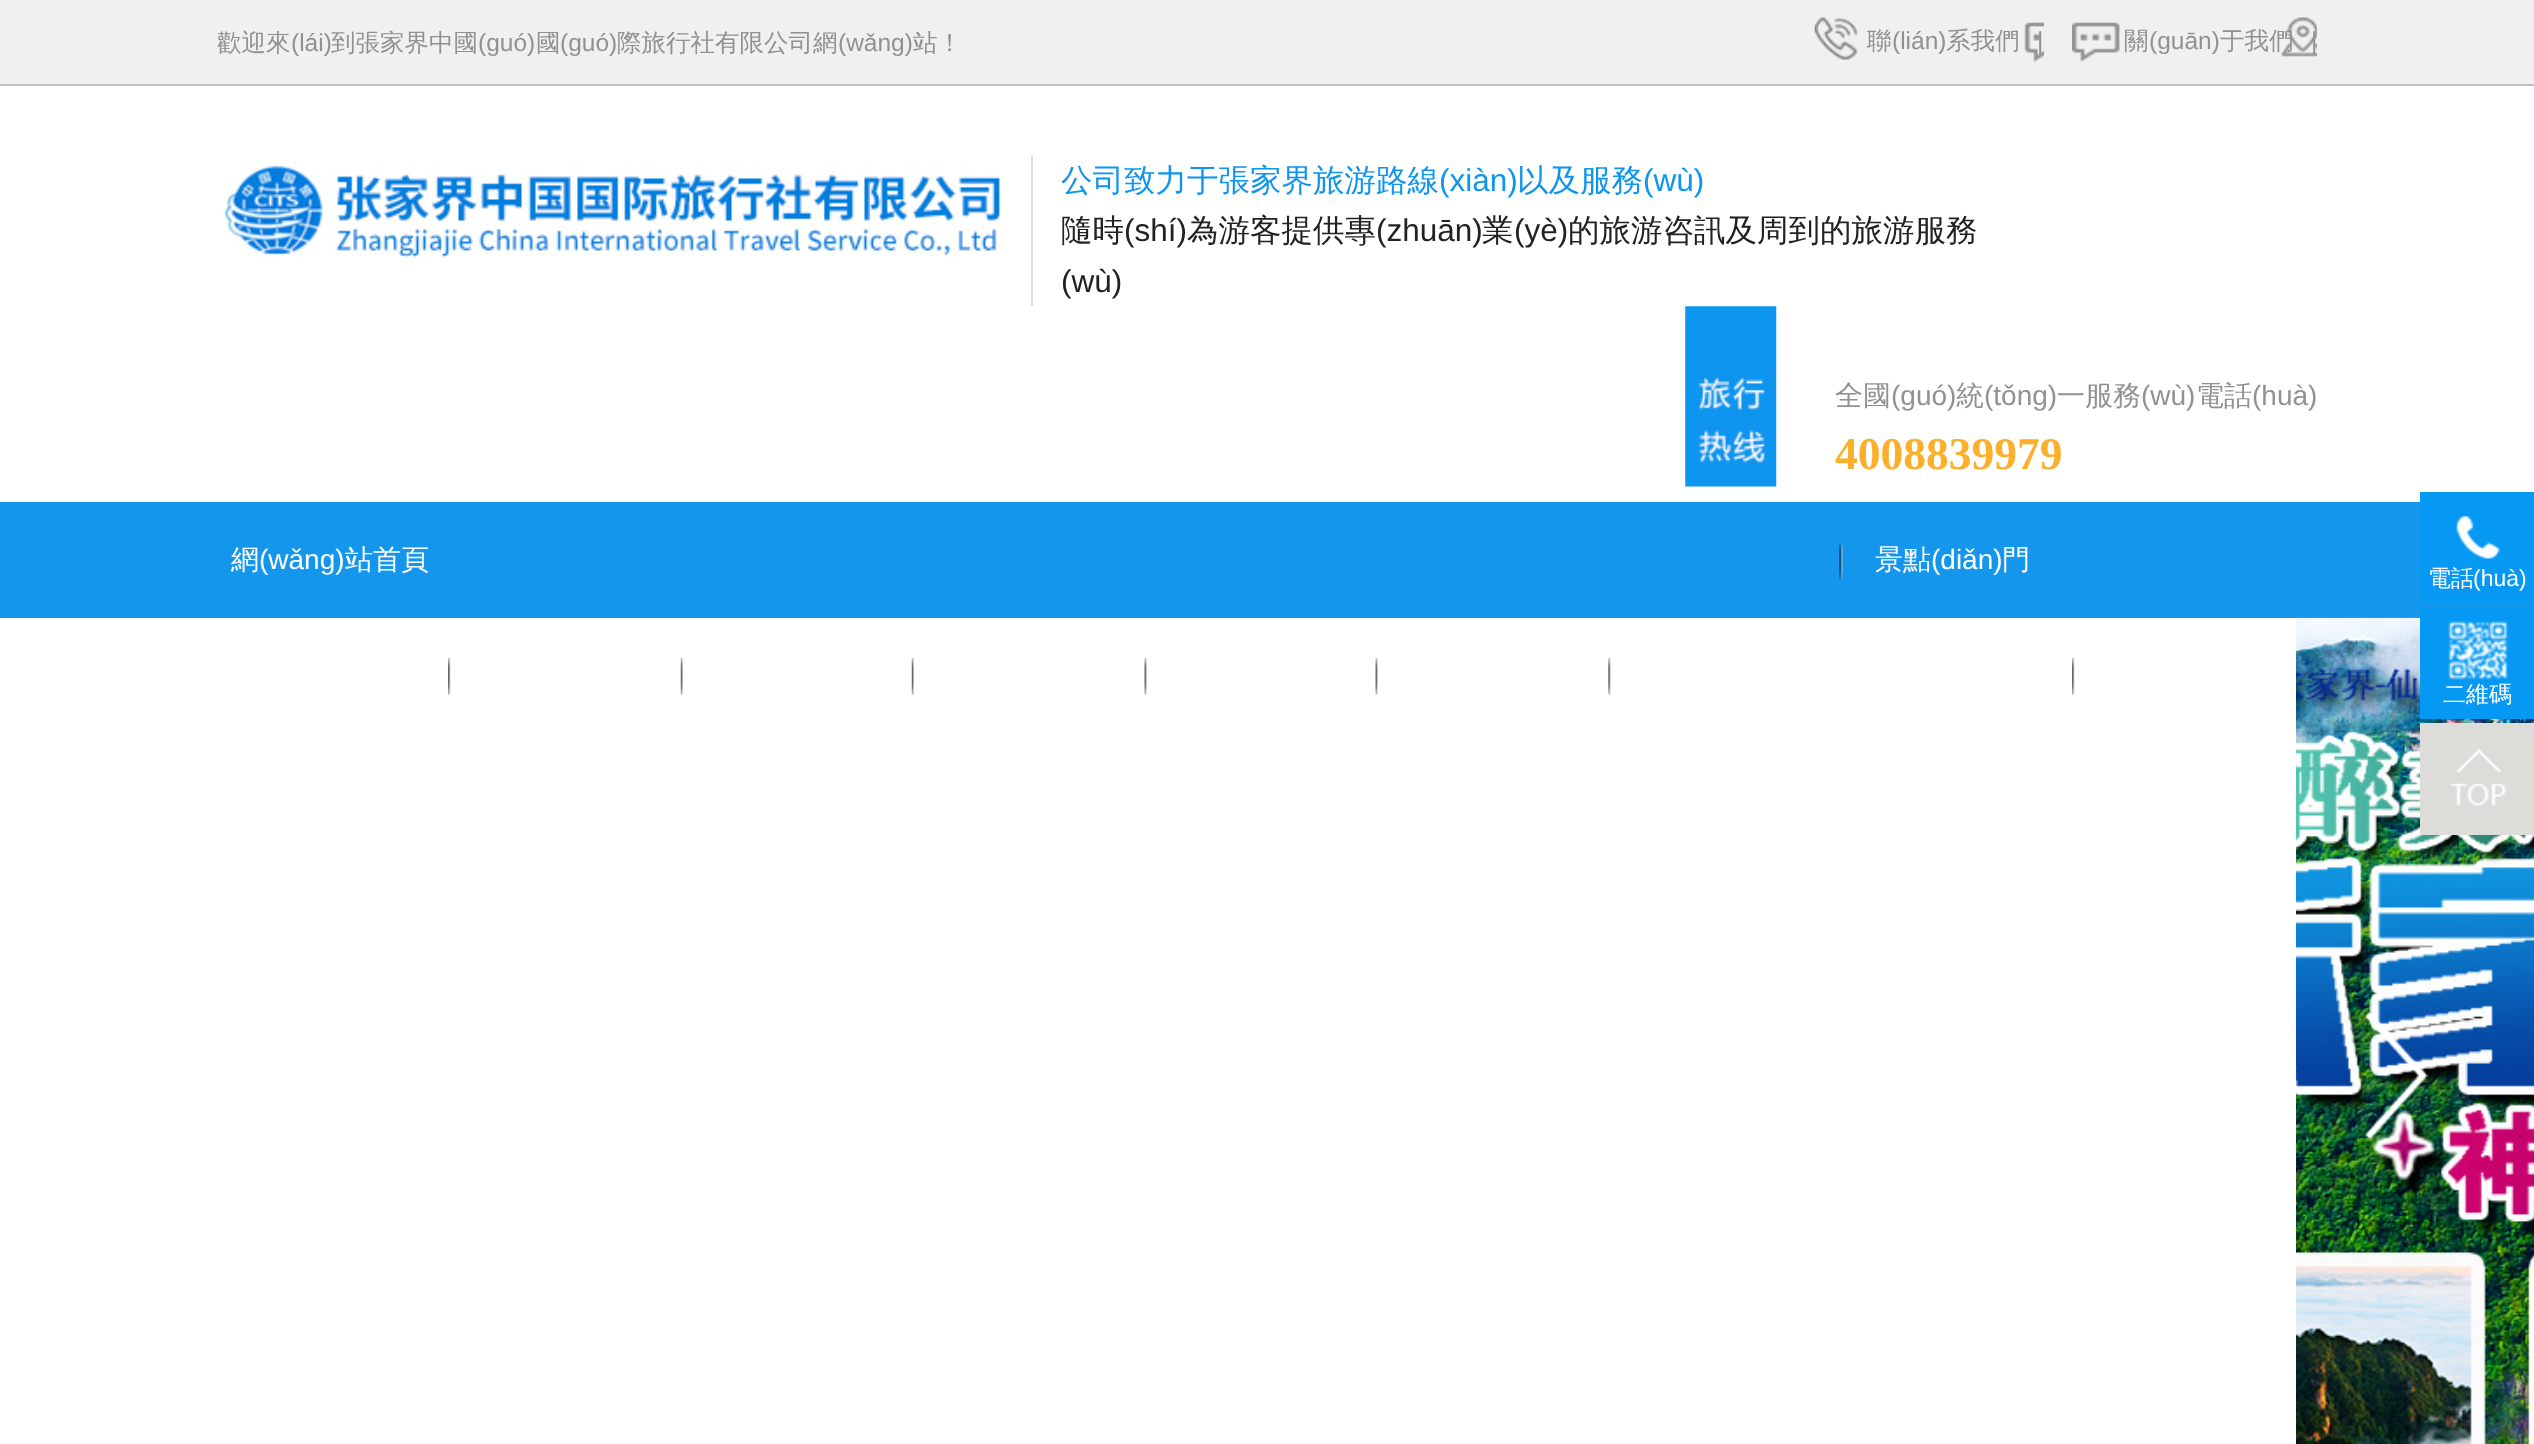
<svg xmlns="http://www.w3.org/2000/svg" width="2534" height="1444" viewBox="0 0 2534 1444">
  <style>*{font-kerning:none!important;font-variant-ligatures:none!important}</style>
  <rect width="100%" height="100%" fill="rgb(255,255,255)"/>
  <rect x="0" y="0" width="2534" height="84" fill="rgb(240,240,240)"/>
  <rect x="0" y="84" width="2534" height="2" fill="rgb(191,191,191)"/>
  <text x="217" y="51" font-family="WenQuanYi Zen Hei" font-size="24.5" font-weight="500" fill="rgb(145,145,145)">歡迎來</text>
  <text x="291" y="51" font-family="Liberation Sans" font-size="24.5" fill="rgb(145,145,145)">(lái)</text>
  <text x="331" y="51" font-family="WenQuanYi Zen Hei" font-size="24.5" font-weight="500" fill="rgb(145,145,145)">到張家界中國</text>
  <text x="478" y="51" font-family="Liberation Sans" font-size="24.5" fill="rgb(145,145,145)">(guó)</text>
  <text x="536" y="51" font-family="WenQuanYi Zen Hei" font-size="24.5" font-weight="500" fill="rgb(145,145,145)">國</text>
  <text x="560" y="51" font-family="Liberation Sans" font-size="24.5" fill="rgb(145,145,145)">(guó)</text>
  <text x="617" y="51" font-family="WenQuanYi Zen Hei" font-size="24.5" font-weight="500" fill="rgb(145,145,145)">際旅行社有限公司網</text>
  <text x="838" y="51" font-family="Liberation Sans" font-size="24.5" fill="rgb(145,145,145)">(wǎng)</text>
  <text x="913" y="51" font-family="WenQuanYi Zen Hei" font-size="24.5" font-weight="500" fill="rgb(145,145,145)">站！</text>
  <image x="1814" y="17" width="230" height="45" href="pic1.png"/>
  <text x="1867" y="49" font-family="WenQuanYi Zen Hei" font-size="24.5" font-weight="500" fill="rgb(145,145,145)">聯</text>
  <text x="1892" y="49" font-family="Liberation Sans" font-size="24.5" fill="rgb(145,145,145)">(lián)</text>
  <text x="1946" y="49" font-family="WenQuanYi Zen Hei" font-size="24.5" font-weight="500" fill="rgb(145,145,145)">系我們</text>
  <text x="2037" y="49" font-family="Liberation Sans" font-size="24.5" fill="rgb(145,145,145)">|</text>
  <image x="2072" y="17" width="245" height="45" href="pic2.png"/>
  <text x="2124" y="49" font-family="WenQuanYi Zen Hei" font-size="24.5" font-weight="500" fill="rgb(145,145,145)">關</text>
  <text x="2149" y="49" font-family="Liberation Sans" font-size="24.5" fill="rgb(145,145,145)">(guān)</text>
  <text x="2220" y="49" font-family="WenQuanYi Zen Hei" font-size="24.5" font-weight="500" fill="rgb(145,145,145)">于我們</text>
  <text x="2311" y="49" font-family="Liberation Sans" font-size="24.5" fill="rgb(145,145,145)">|</text>
  <image x="223" y="165" width="777" height="99" href="pic3.png"/>
  <rect x="1031" y="156" width="2" height="150" fill="rgb(221,221,221)"/>
  <text x="1061" y="191" font-family="WenQuanYi Zen Hei" font-size="31.5" font-weight="500" fill="rgb(14,149,239)">公司致力于張家界旅游路線</text>
  <text x="1439" y="191" font-family="Liberation Sans" font-size="31.5" fill="rgb(14,149,239)">(xiàn)</text>
  <text x="1517" y="191" font-family="WenQuanYi Zen Hei" font-size="31.5" font-weight="500" fill="rgb(14,149,239)">以及服務</text>
  <text x="1643" y="191" font-family="Liberation Sans" font-size="31.5" fill="rgb(14,149,239)">(wù)</text>
  <text x="1061" y="241" font-family="WenQuanYi Zen Hei" font-size="31.5" font-weight="500" fill="rgb(34,34,34)">隨時</text>
  <text x="1124" y="241" font-family="Liberation Sans" font-size="31.5" fill="rgb(34,34,34)">(shí)</text>
  <text x="1187" y="241" font-family="WenQuanYi Zen Hei" font-size="31.5" font-weight="500" fill="rgb(34,34,34)">為游客提供專</text>
  <text x="1376" y="241" font-family="Liberation Sans" font-size="31.5" fill="rgb(34,34,34)">(zhuān)</text>
  <text x="1482" y="241" font-family="WenQuanYi Zen Hei" font-size="31.5" font-weight="500" fill="rgb(34,34,34)">業</text>
  <text x="1514" y="241" font-family="Liberation Sans" font-size="31.5" fill="rgb(34,34,34)">(yè)</text>
  <text x="1568" y="241" font-family="WenQuanYi Zen Hei" font-size="31.5" font-weight="500" fill="rgb(34,34,34)">的旅游咨訊及周到的旅游服務</text>
  <text x="1061" y="292" font-family="Liberation Sans" font-size="31.5" fill="rgb(34,34,34)">(wù)</text>
  <image x="1685" y="306" width="92" height="181" href="pic4.png"/>
  <text x="1835" y="405" font-family="WenQuanYi Zen Hei" font-size="28" font-weight="500" fill="rgb(145,145,145)">全國</text>
  <text x="1891" y="405" font-family="Liberation Sans" font-size="28" fill="rgb(145,145,145)">(guó)</text>
  <text x="1956" y="405" font-family="WenQuanYi Zen Hei" font-size="28" font-weight="500" fill="rgb(145,145,145)">統</text>
  <text x="1984" y="405" font-family="Liberation Sans" font-size="28" fill="rgb(145,145,145)">(tǒng)</text>
  <text x="2057" y="405" font-family="WenQuanYi Zen Hei" font-size="28" font-weight="500" fill="rgb(145,145,145)">一服務</text>
  <text x="2141" y="405" font-family="Liberation Sans" font-size="28" fill="rgb(145,145,145)">(wù)</text>
  <text x="2196" y="405" font-family="WenQuanYi Zen Hei" font-size="28" font-weight="500" fill="rgb(145,145,145)">電話</text>
  <text x="2252" y="405" font-family="Liberation Sans" font-size="28" fill="rgb(145,145,145)">(huà)</text>
  <text x="1835" y="469" font-family="Liberation Serif" font-size="45.5" font-weight="bold" fill="rgb(252,175,42)">4008839979</text>
  <rect x="0" y="502" width="2534" height="116" fill="rgb(21,150,237)"/>
  <text x="231" y="569" font-family="WenQuanYi Zen Hei" font-size="28" font-weight="500" fill="rgb(255,255,255)">網</text>
  <text x="259" y="569" font-family="Liberation Sans" font-size="28" fill="rgb(255,255,255)">(wǎng)</text>
  <text x="345" y="569" font-family="WenQuanYi Zen Hei" font-size="28" font-weight="500" fill="rgb(255,255,255)">站首頁</text>
  <image x="1839" y="542" width="4" height="38" href="pic5.png"/>
  <text x="1875" y="569" font-family="WenQuanYi Zen Hei" font-size="28" font-weight="500" fill="rgb(255,255,255)">景點</text>
  <text x="1931" y="569" font-family="Liberation Sans" font-size="28" fill="rgb(255,255,255)">(diǎn)</text>
  <text x="2002" y="569" font-family="WenQuanYi Zen Hei" font-size="28" font-weight="500" fill="rgb(255,255,255)">門</text>
  <image x="448" y="658" width="3" height="37" href="pic6.png"/>
  <image x="680" y="658" width="3" height="37" href="pic7.png"/>
  <image x="911" y="658" width="3" height="37" href="pic7.png"/>
  <image x="1144" y="658" width="3" height="37" href="pic8.png"/>
  <image x="1375" y="658" width="3" height="37" href="pic8.png"/>
  <image x="1608" y="658" width="3" height="37" href="pic9.png"/>
  <image x="2072" y="658" width="3" height="37" href="pic6.png"/>
  <rect x="2420" y="492" width="114" height="112" fill="rgb(6,153,243)"/>
  <image x="2456" y="515" width="44" height="44" href="pic10.png"/>
  <text x="2428" y="586" font-family="WenQuanYi Zen Hei" font-size="23" font-weight="500" fill="rgb(255,255,255)">電話</text>
  <text x="2473" y="586" font-family="Liberation Sans" font-size="23" fill="rgb(255,255,255)">(huà)</text>
  <image x="2296" y="617" width="238" height="827" href="pic13.png"/>
  <rect x="2420" y="607" width="114" height="112" fill="rgb(6,153,243)"/>
  <image x="2448" y="621" width="60" height="59" href="pic11.png"/>
  <text x="2443" y="702" font-family="WenQuanYi Zen Hei" font-size="23" font-weight="500" fill="rgb(255,255,255)">二維碼</text>
  <rect x="2420" y="723" width="114" height="112" fill="rgb(220,220,217)"/>
  <image x="2450" y="748" width="57" height="58" href="pic12.png"/>
  <image x="2365" y="1011" width="63" height="129" href="pic14.png"/>
</svg>
